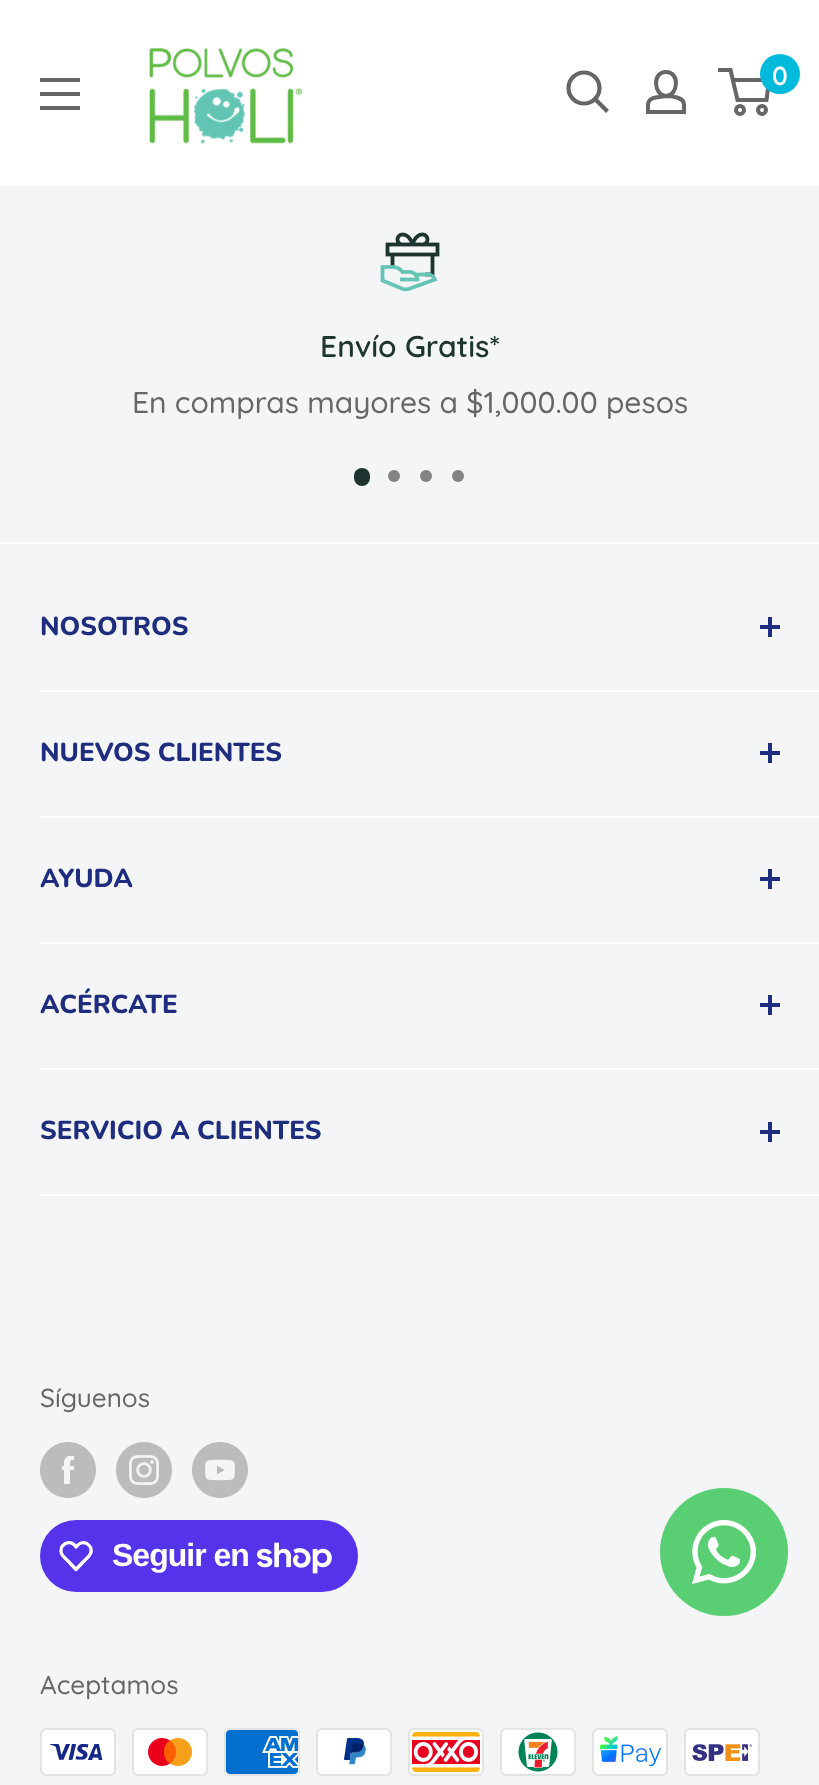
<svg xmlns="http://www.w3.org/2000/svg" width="819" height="1785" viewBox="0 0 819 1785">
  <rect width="100%" height="100%" fill="rgb(243,245,246)"/>
  <rect x="0" y="0" width="819" height="186" fill="rgb(255,255,255)"/>
  <image x="149" y="47" width="154" height="97" href="pic1.png"/>
  <path d="M606 110L595.5 99.5" fill="none" stroke="rgb(102,102,102)" stroke-width="4.2" stroke-linecap="square"/>
  <circle cx="584" cy="88" r="15.5" fill="none" stroke="rgb(102,102,102)" stroke-width="4.2"/>
  <path d="M666 96C670 96 673.5 96.5 677 97.5C685.5 100 684 104.5 684 112H648C648 104 646.5 99.5 655.5 97.5ZM666 96C654 96 651.5 72 666 72C680.5 72 678 96 666 96Z" fill="none" stroke="rgb(102,102,102)" stroke-width="4"/>
  <circle cx="740" cy="110" r="4" fill="none" stroke="rgb(102,102,102)" stroke-width="4"/>
  <circle cx="762" cy="110" r="4" fill="none" stroke="rgb(102,102,102)" stroke-width="4"/>
  <path d="M732.5 80H769L766.5 100H737.5L730.5 70H718" fill="none" stroke="rgb(102,102,102)" stroke-width="4"/>
  <circle cx="780" cy="74" r="20" fill="rgb(0,186,219)"/>
  <text x="772" y="85" font-family="Quicksand" font-size="26" font-weight="600" fill="rgb(255,255,255)">0</text>
  <path d="M40 106H80V110H40ZM40 78H80V82H40ZM40 92H80V96H40Z" fill="rgb(102,102,102)" fill-rule="evenodd"/>
  <image x="380" y="232" width="60" height="60" href="pic2.png"/>
  <text x="320" y="357" font-family="Quicksand" font-size="30" font-weight="600" fill="rgb(29,52,48)">Envío Gratis*</text>
  <text x="132" y="413" font-family="Quicksand" font-size="30" font-weight="500" fill="rgb(102,102,102)">En compras mayores a $1,000.00 pesos</text>
  <rect x="354" y="468" width="16" height="18" rx="8" fill="rgb(29,52,48)"/>
  <circle cx="394" cy="476" r="6" fill="rgb(130,131,131)"/>
  <circle cx="426" cy="476" r="6" fill="rgb(130,131,131)"/>
  <circle cx="458" cy="476" r="6" fill="rgb(130,131,131)"/>
  <rect x="0" y="542" width="819" height="2" fill="rgb(255,255,255)"/>
  <rect x="40" y="690" width="779" height="2" fill="rgb(255,255,255)"/>
  <text x="40" y="635" font-family="Nunito" font-size="26" font-weight="800" fill="rgb(30,45,125)">NOSOTROS</text>
  <rect x="768" y="617" width="4" height="20" fill="rgb(30,45,125)"/>
  <rect x="760" y="625" width="20" height="4" fill="rgb(30,45,125)"/>
  <rect x="40" y="816" width="779" height="2" fill="rgb(255,255,255)"/>
  <text x="40" y="761" font-family="Nunito" font-size="26" font-weight="800" fill="rgb(30,45,125)">NUEVOS CLIENTES</text>
  <rect x="768" y="743" width="4" height="20" fill="rgb(30,45,125)"/>
  <rect x="760" y="751" width="20" height="4" fill="rgb(30,45,125)"/>
  <rect x="40" y="942" width="779" height="2" fill="rgb(255,255,255)"/>
  <text x="40" y="887" font-family="Nunito" font-size="26" font-weight="800" fill="rgb(30,45,125)">AYUDA</text>
  <rect x="768" y="869" width="4" height="20" fill="rgb(30,45,125)"/>
  <rect x="760" y="877" width="20" height="4" fill="rgb(30,45,125)"/>
  <rect x="40" y="1068" width="779" height="2" fill="rgb(255,255,255)"/>
  <text x="40" y="1013" font-family="Nunito" font-size="26" font-weight="800" fill="rgb(30,45,125)">ACÉRCATE</text>
  <rect x="768" y="995" width="4" height="20" fill="rgb(30,45,125)"/>
  <rect x="760" y="1003" width="20" height="4" fill="rgb(30,45,125)"/>
  <rect x="40" y="1194" width="779" height="2" fill="rgb(255,255,255)"/>
  <text x="40" y="1139" font-family="Nunito" font-size="26" font-weight="800" fill="rgb(30,45,125)">SERVICIO A CLIENTES</text>
  <rect x="768" y="1122" width="4" height="20" fill="rgb(30,45,125)"/>
  <rect x="760" y="1130" width="20" height="4" fill="rgb(30,45,125)"/>
  <text x="40" y="1407" font-family="Quicksand" font-size="26" font-weight="500" fill="rgb(102,102,102)">Síguenos</text>
  <image x="40" y="1442" width="56" height="56" href="pic3.png"/>
  <image x="116" y="1442" width="56" height="56" href="pic4.png"/>
  <image x="192" y="1442" width="56" height="56" href="pic5.png"/>
  <rect x="40" y="1520" width="318" height="72" rx="36" fill="rgb(84,51,235)"/>
  <path d="M74.5 1545L76 1547C77.5 1545.5 79 1543.5 81 1543C87 1541 93 1547.5 90.5 1553.5C89.5 1556.5 86.5 1558.5 84.5 1560.5L76 1569.5L67.5 1560.5C65.5 1558.5 62.5 1556.5 61.5 1553.5C58.5 1545.5 68.5 1539 74.5 1545Z" fill="none" stroke="rgb(255,255,255)" stroke-width="3.3" stroke-linejoin="round"/>
  <text x="112" y="1566" font-family="Liberation Sans" font-size="32" font-weight="bold" letter-spacing="-1" fill="rgb(255,255,255)">Seguir en</text>
  <image x="257" y="1542" width="75" height="32" href="pic6.png"/>
  <text x="40" y="1694" font-family="Quicksand" font-size="26" font-weight="500" fill="rgb(102,102,102)">Aceptamos</text>
  <image x="40" y="1728" width="76" height="48" href="pic7.png"/>
  <image x="132" y="1728" width="76" height="48" href="pic8.png"/>
  <image x="224" y="1728" width="76" height="48" href="pic9.png"/>
  <image x="316" y="1728" width="76" height="48" href="pic10.png"/>
  <image x="408" y="1728" width="76" height="48" href="pic11.png"/>
  <image x="500" y="1728" width="76" height="48" href="pic12.png"/>
  <image x="592" y="1728" width="76" height="48" href="pic13.png"/>
  <image x="684" y="1728" width="76" height="48" href="pic14.png"/>
  <circle cx="724" cy="1552" r="64" fill="rgb(89,206,114)"/>
  <image x="692" y="1520" width="64" height="64" href="pic15.png"/>
</svg>
